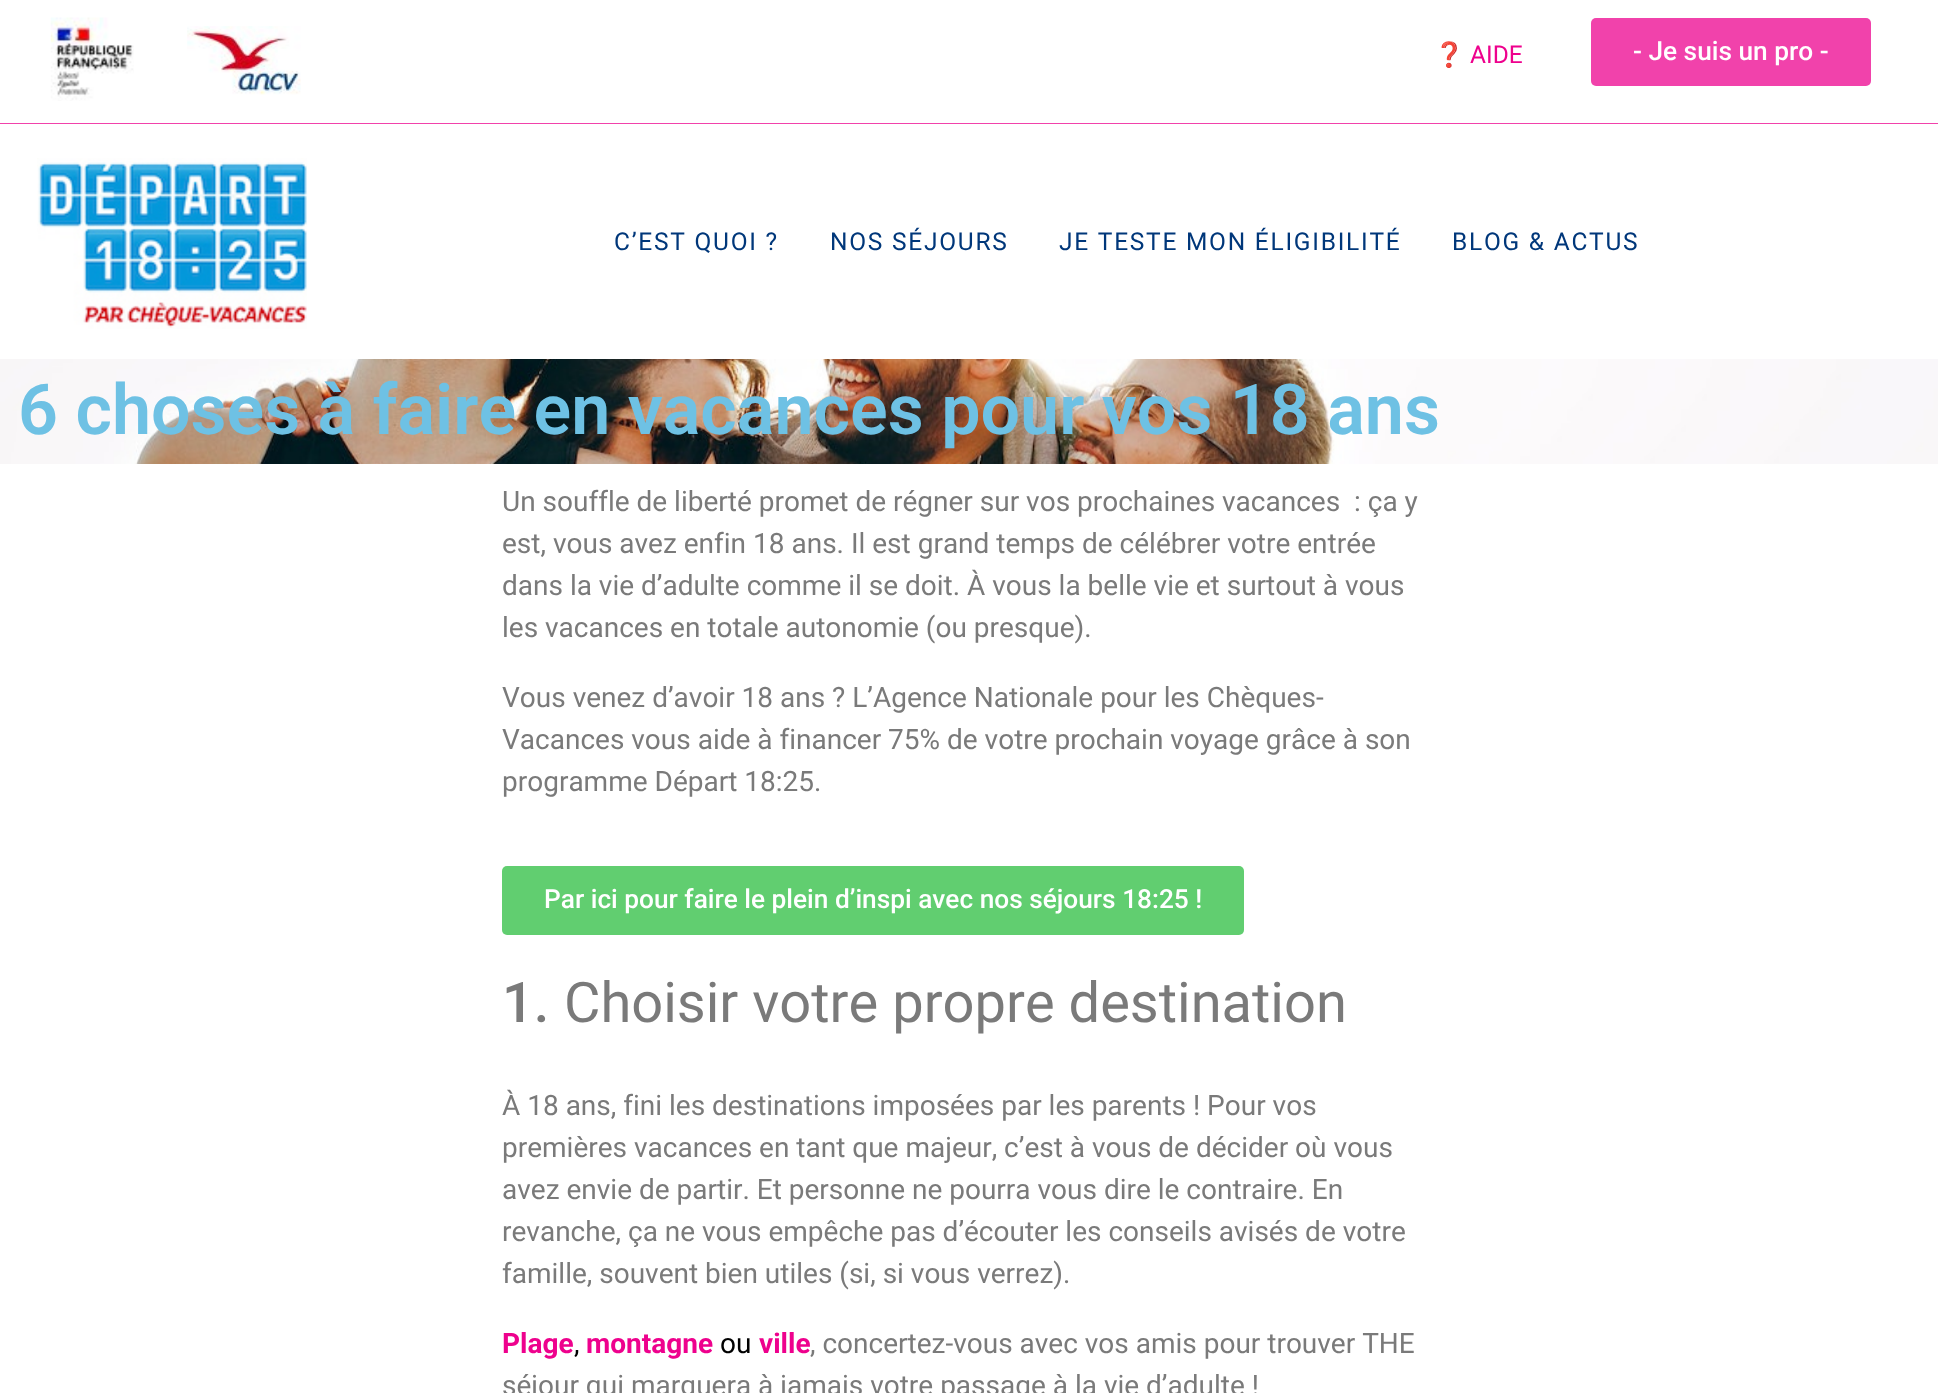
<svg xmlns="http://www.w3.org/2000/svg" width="1938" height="1393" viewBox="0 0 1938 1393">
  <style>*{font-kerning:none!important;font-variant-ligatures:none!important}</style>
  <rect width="100%" height="100%" fill="rgb(255,255,255)"/>
  <rect x="0" y="123" width="1938" height="1" fill="rgb(241,66,171)"/>
  <image x="50" y="17" width="84" height="84" href="pic1.png"/>
  <image x="187" y="26" width="114" height="69" href="pic2.png"/>
  <text x="1434" y="63" font-family="Noto Color Emoji" font-size="24.5" fill="rgb(238,1,141)">❓</text>
  <text x="1470" y="63" font-family="Roboto" font-size="24.5" fill="rgb(238,1,141)">AIDE</text>
  <rect x="1591" y="18" width="280" height="68" rx="5" fill="rgb(241,66,171)"/>
  <text x="1633" y="60" font-family="Roboto" font-size="26.25" font-weight="500" fill="rgb(255,255,255)">- Je suis un pro -</text>
  <image x="37" y="158" width="270" height="171" href="pic3.png"/>
  <g font-family="Roboto" font-size="24.5" letter-spacing="1.75" fill="rgb(0,55,122)">
    <text x="614" y="250">C’EST QUOI ?</text>
    <text x="830" y="250">NOS SÉJOURS</text>
    <text x="1059" y="250">JE TESTE MON ÉLIGIBILITÉ</text>
    <text x="1452" y="250">BLOG &amp; ACTUS</text>
  </g>
  <image x="0" y="359" width="1938" height="105" href="pic4.png"/>
  <text x="18" y="434" font-family="Roboto" font-size="70" font-weight="600" fill="rgb(110,193,228)">6 choses à faire en vacances pour vos 18 ans</text>
  <g font-family="Roboto" font-size="28" fill="rgb(122,122,122)">
    <text xml:space="preserve"><tspan x="502" y="511">Un souffle de liberté promet de régner sur vos prochaines vacances  : ça y</tspan><tspan x="502" y="553">est, vous avez enfin 18 ans. Il est grand temps de célébrer votre entrée</tspan><tspan x="502" y="595">dans la vie d’adulte comme il se doit. À vous la belle vie et surtout à vous</tspan><tspan x="502" y="637">les vacances en totale autonomie (ou presque).</tspan></text>
    <text>
      <tspan x="502" y="707">Vous venez d’avoir 18 ans ? L’Agence Nationale pour les Chèques-</tspan>
      <tspan x="502" y="749">Vacances vous aide à financer 75% de votre prochain voyage grâce à son</tspan>
      <tspan x="502" y="791">programme Départ 18:25.</tspan>
    </text>
  </g>
  <rect x="502" y="866" width="742" height="69" rx="5" fill="rgb(97,206,112)"/>
  <text x="544" y="908" font-family="Roboto" font-size="26.25" font-weight="500" fill="rgb(255,255,255)">Par ici pour faire le plein d’inspi avec nos séjours 18:25 !</text>
  <text x="502" y="1022" font-family="Roboto" font-size="56" font-weight="500" fill="rgb(122,122,122)">1.</text>
  <text x="564" y="1022" font-family="Roboto" font-size="56" fill="rgb(122,122,122)">Choisir votre propre destination</text>
  <g font-family="Roboto" font-size="28" fill="rgb(122,122,122)">
    <text>
      <tspan x="502" y="1115">À 18 ans, fini les destinations imposées par les parents ! Pour vos</tspan>
      <tspan x="502" y="1157">premières vacances en tant que majeur, c’est à vous de décider où vous</tspan>
      <tspan x="502" y="1199">avez envie de partir. Et personne ne pourra vous dire le contraire. En</tspan>
      <tspan x="502" y="1241">revanche, ça ne vous empêche pas d’écouter les conseils avisés de votre</tspan>
      <tspan x="502" y="1283">famille, souvent bien utiles (si, si vous verrez).</tspan>
    </text>
  </g>
  <text x="502" y="1353" font-family="Roboto" font-size="28" font-weight="bold" fill="rgb(238,1,141)">Plage</text>
  <text x="574" y="1353" font-family="Roboto" font-size="28" fill="rgb(0,0,0)">,</text>
  <text x="586" y="1353" font-family="Roboto" font-size="28" font-weight="bold" fill="rgb(238,1,141)">montagne</text>
  <text x="720" y="1353" font-family="Roboto" font-size="28" fill="rgb(0,0,0)">ou</text>
  <text x="759" y="1353" font-family="Roboto" font-size="28" font-weight="bold" fill="rgb(238,1,141)">ville</text>
  <g font-family="Roboto" font-size="28" fill="rgb(122,122,122)">
    <text x="810" y="1353">, concertez-vous avec vos amis pour trouver THE</text>
    <text x="502" y="1395">séjour qui marquera à jamais votre passage à la vie d’adulte !</text>
  </g>
</svg>
